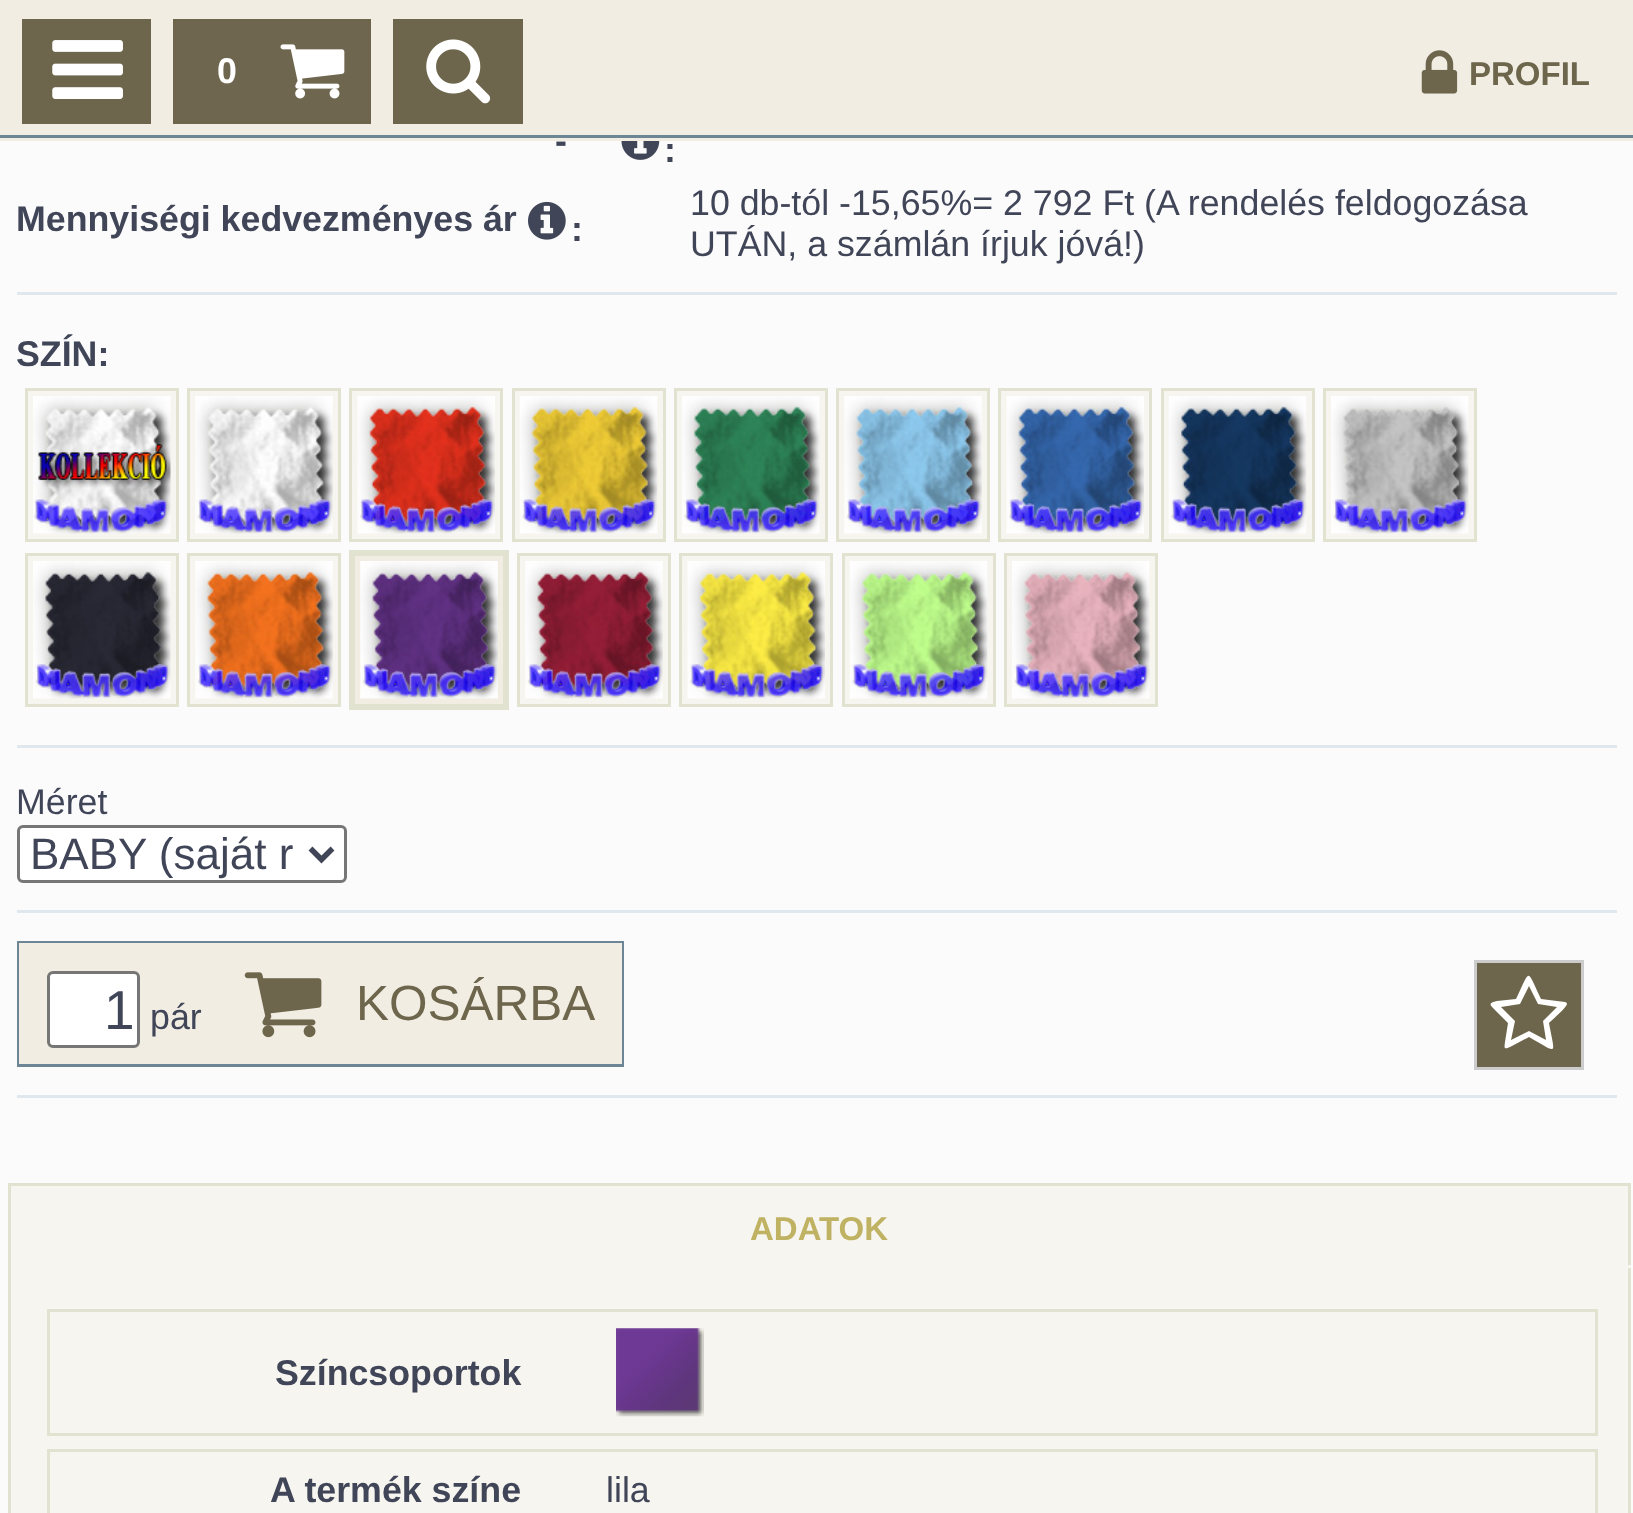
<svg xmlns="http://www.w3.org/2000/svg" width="1633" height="1513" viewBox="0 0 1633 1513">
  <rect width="100%" height="100%" fill="rgb(251,251,251)"/>
  <rect x="0" y="0" width="1633" height="135" fill="rgb(241,237,226)"/>
  <rect x="0" y="138" width="1633" height="3" fill="rgb(241,237,226)"/>
  <rect x="0" y="135" width="1633" height="3" fill="rgb(109,134,150)"/>
  <rect x="22" y="19" width="129" height="105" fill="rgb(109,102,76)"/>
  <image x="52" y="40" width="71" height="59" href="pic1.png"/>
  <rect x="176" y="22" width="193" height="99" fill="rgb(110,102,79)"/>
  <rect x="173" y="19" width="198" height="3" fill="rgb(109,102,76)"/>
  <rect x="173" y="121" width="97" height="3" fill="rgb(109,102,76)"/>
  <rect x="173" y="19" width="3" height="105" fill="rgb(109,102,76)"/>
  <text x="217" y="83" font-family="Liberation Sans" font-size="35.75" font-weight="bold" fill="rgb(255,255,255)">0</text>
  <rect x="369" y="19" width="2" height="105" fill="rgb(109,102,76)"/>
  <rect x="270" y="121" width="101" height="3" fill="rgb(109,102,76)"/>
  <image x="280" y="44" width="65" height="55" href="pic2.png"/>
  <rect x="393" y="19" width="130" height="105" fill="rgb(109,102,76)"/>
  <image x="426" y="39" width="65" height="65" href="pic3.png"/>
  <image x="1421" y="50" width="37" height="44" href="pic4.png"/>
  <text x="1469" y="85" font-family="Liberation Sans" font-size="33" font-weight="bold" fill="rgb(109,102,76)">PROFIL</text>
  <rect x="17" y="292" width="1600" height="3" fill="rgb(225,232,237)"/>
  <text x="555" y="153" font-family="Liberation Sans" font-size="35.75" font-weight="bold" fill="rgb(65,69,88)">-</text>
  <image x="621" y="141" width="39" height="19" href="pic5.png"/>
  <g font-family="Liberation Sans" font-size="35.75" font-weight="bold" fill="rgb(65,69,88)">
    <text x="664" y="162">:</text>
    <text x="16" y="231">Mennyiségi kedvezményes ár</text>
  </g>
  <image x="528" y="201" width="38" height="39" href="pic6.png"/>
  <text x="571" y="241" font-family="Liberation Sans" font-size="35.75" font-weight="bold" fill="rgb(65,69,88)">:</text>
  <g font-family="Liberation Sans" font-size="35.75" fill="rgb(65,69,88)">
    <text>
      <tspan x="690" y="215">10 db-tól -15,65%= 2 792 Ft (A rendelés feldogozása</tspan>
      <tspan x="690" y="256">UTÁN, a számlán írjuk jóvá!)</tspan>
    </text>
  </g>
  <rect x="17" y="745" width="1600" height="3" fill="rgb(225,232,237)"/>
  <text x="16" y="366" font-family="Liberation Sans" font-size="35.75" font-weight="bold" fill="rgb(65,69,88)">SZÍN:</text>
  <rect x="26.5" y="389.5" width="151" height="151" fill="rgb(247,245,239)" stroke="rgb(225,226,208)" stroke-width="3"/>
  <image x="33" y="396" width="138" height="138" href="pic7.png"/>
  <rect x="188.5" y="389.5" width="151" height="151" fill="rgb(247,245,239)" stroke="rgb(225,226,208)" stroke-width="3"/>
  <image x="195" y="396" width="138" height="138" href="pic8.png"/>
  <rect x="350.5" y="389.5" width="151" height="151" fill="rgb(247,245,239)" stroke="rgb(225,226,208)" stroke-width="3"/>
  <image x="357" y="396" width="138" height="138" href="pic9.png"/>
  <rect x="513.5" y="389.5" width="151" height="151" fill="rgb(247,245,239)" stroke="rgb(225,226,208)" stroke-width="3"/>
  <image x="519" y="396" width="139" height="138" href="pic10.png"/>
  <rect x="675.5" y="389.5" width="151" height="151" fill="rgb(247,245,239)" stroke="rgb(225,226,208)" stroke-width="3"/>
  <image x="682" y="396" width="138" height="138" href="pic11.png"/>
  <rect x="837.5" y="389.5" width="151" height="151" fill="rgb(247,245,239)" stroke="rgb(225,226,208)" stroke-width="3"/>
  <image x="844" y="396" width="138" height="138" href="pic12.png"/>
  <rect x="999.5" y="389.5" width="151" height="151" fill="rgb(247,245,239)" stroke="rgb(225,226,208)" stroke-width="3"/>
  <image x="1006" y="396" width="138" height="138" href="pic13.png"/>
  <rect x="1162.5" y="389.5" width="151" height="151" fill="rgb(247,245,239)" stroke="rgb(225,226,208)" stroke-width="3"/>
  <image x="1168" y="396" width="139" height="138" href="pic14.png"/>
  <rect x="1324.5" y="389.5" width="151" height="151" fill="rgb(247,245,239)" stroke="rgb(225,226,208)" stroke-width="3"/>
  <image x="1331" y="396" width="138" height="138" href="pic15.png"/>
  <rect x="26.5" y="554.5" width="151" height="151" fill="rgb(247,245,239)" stroke="rgb(225,226,208)" stroke-width="3"/>
  <image x="33" y="561" width="138" height="138" href="pic16.png"/>
  <rect x="188.5" y="554.5" width="151" height="151" fill="rgb(247,245,239)" stroke="rgb(225,226,208)" stroke-width="3"/>
  <image x="195" y="561" width="138" height="138" href="pic17.png"/>
  <rect x="352" y="553" width="154" height="154" fill="rgb(241,237,226)" stroke="rgb(225,226,208)" stroke-width="6"/>
  <image x="360" y="561" width="138" height="138" href="pic18.png"/>
  <rect x="518.5" y="554.5" width="151" height="151" fill="rgb(247,245,239)" stroke="rgb(225,226,208)" stroke-width="3"/>
  <image x="525" y="561" width="138" height="138" href="pic19.png"/>
  <rect x="680.5" y="554.5" width="151" height="151" fill="rgb(247,245,239)" stroke="rgb(225,226,208)" stroke-width="3"/>
  <image x="687" y="561" width="138" height="138" href="pic20.png"/>
  <rect x="843.5" y="554.5" width="151" height="151" fill="rgb(247,245,239)" stroke="rgb(225,226,208)" stroke-width="3"/>
  <image x="849" y="561" width="139" height="138" href="pic21.png"/>
  <rect x="1005.5" y="554.5" width="151" height="151" fill="rgb(247,245,239)" stroke="rgb(225,226,208)" stroke-width="3"/>
  <image x="1012" y="561" width="138" height="138" href="pic22.png"/>
  <rect x="17" y="910" width="1600" height="3" fill="rgb(225,232,237)"/>
  <text x="16" y="814" font-family="Liberation Sans" font-size="35.75" fill="rgb(65,69,88)">Méret</text>
  <rect x="18.5" y="826.5" width="327" height="55" rx="4.5" fill="rgb(255,255,255)" stroke="rgb(118,118,118)" stroke-width="3"/>
  <path d="M310.5 848.5L321.5 859.5L332.5 848.5" fill="none" stroke="rgb(65,69,88)" stroke-width="5.5"/>
  <text x="30" y="869" font-family="Liberation Sans" font-size="44" fill="rgb(65,69,88)">BABY (saját r</text>
  <rect x="17" y="1095" width="1600" height="3" fill="rgb(225,232,237)"/>
  <rect x="18.5" y="942.5" width="604" height="123" fill="none" stroke="rgb(109,134,150)" stroke-width="3"/>
  <rect x="19" y="943" width="603" height="121" fill="rgb(241,237,226)"/>
  <rect x="48.5" y="972.5" width="90" height="74" rx="4.5" fill="rgb(255,255,255)" stroke="rgb(118,118,118)" stroke-width="3"/>
  <text x="104" y="1029" font-family="Liberation Sans" font-size="55" fill="rgb(65,69,88)">1</text>
  <text x="150" y="1029" font-family="Liberation Sans" font-size="35.75" fill="rgb(65,69,88)">pár</text>
  <image x="244" y="972" width="78" height="66" href="pic23.png"/>
  <text x="356" y="1020" font-family="Liberation Sans" font-size="49.5" fill="rgb(109,102,76)">KOSÁRBA</text>
  <rect x="1475.5" y="961.5" width="107" height="107" fill="rgb(109,102,76)" stroke="rgb(204,204,204)" stroke-width="3"/>
  <path d="M1543 1021L1557 1007L1538 1004L1529 986L1520 1004L1501 1007L1515 1021L1511 1040L1529 1031L1546 1040ZM1567 1004C1567 1007 1552 1020 1549 1023C1555 1056 1559 1054 1529 1037L1512 1046C1504 1050 1504 1049 1505 1042L1508 1023L1494 1009C1489 1004 1489 1003 1497 1001L1516 999C1531 968 1526 968 1541 999L1565 1002C1566 1002 1567 1003 1567 1004Z" fill="rgb(255,255,255)"/>
  <rect x="11" y="1186" width="1617" height="79" fill="rgb(247,245,239)"/>
  <rect x="8" y="1183" width="1623" height="3" fill="rgb(225,226,208)"/>
  <rect x="9.5" y="1266.5" width="1620" height="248" fill="rgb(247,245,239)" stroke="rgb(225,226,208)" stroke-width="3"/>
  <rect x="1628" y="1183" width="3" height="85" fill="rgb(225,226,208)"/>
  <rect x="8" y="1265" width="1623" height="3" fill="rgb(247,245,239)"/>
  <rect x="8" y="1183" width="3" height="85" fill="rgb(225,226,208)"/>
  <text x="750" y="1240" font-family="Liberation Sans" font-size="33" font-weight="bold" fill="rgb(192,178,99)">ADATOK</text>
  <rect x="48.5" y="1310.5" width="1548" height="124" fill="none" stroke="rgb(225,226,208)" stroke-width="3"/>
  <text x="275" y="1385" font-family="Liberation Sans" font-size="35.75" font-weight="bold" fill="rgb(65,69,88)">Színcsoportok</text>
  <image x="616" y="1328" width="88" height="89" href="pic24.png"/>
  <rect x="48.5" y="1450.5" width="1548" height="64" fill="none" stroke="rgb(225,226,208)" stroke-width="3"/>
  <text x="270" y="1502" font-family="Liberation Sans" font-size="35.75" font-weight="bold" fill="rgb(65,69,88)">A termék színe</text>
  <text x="606" y="1502" font-family="Liberation Sans" font-size="35.75" fill="rgb(65,69,88)">lila</text>
</svg>
